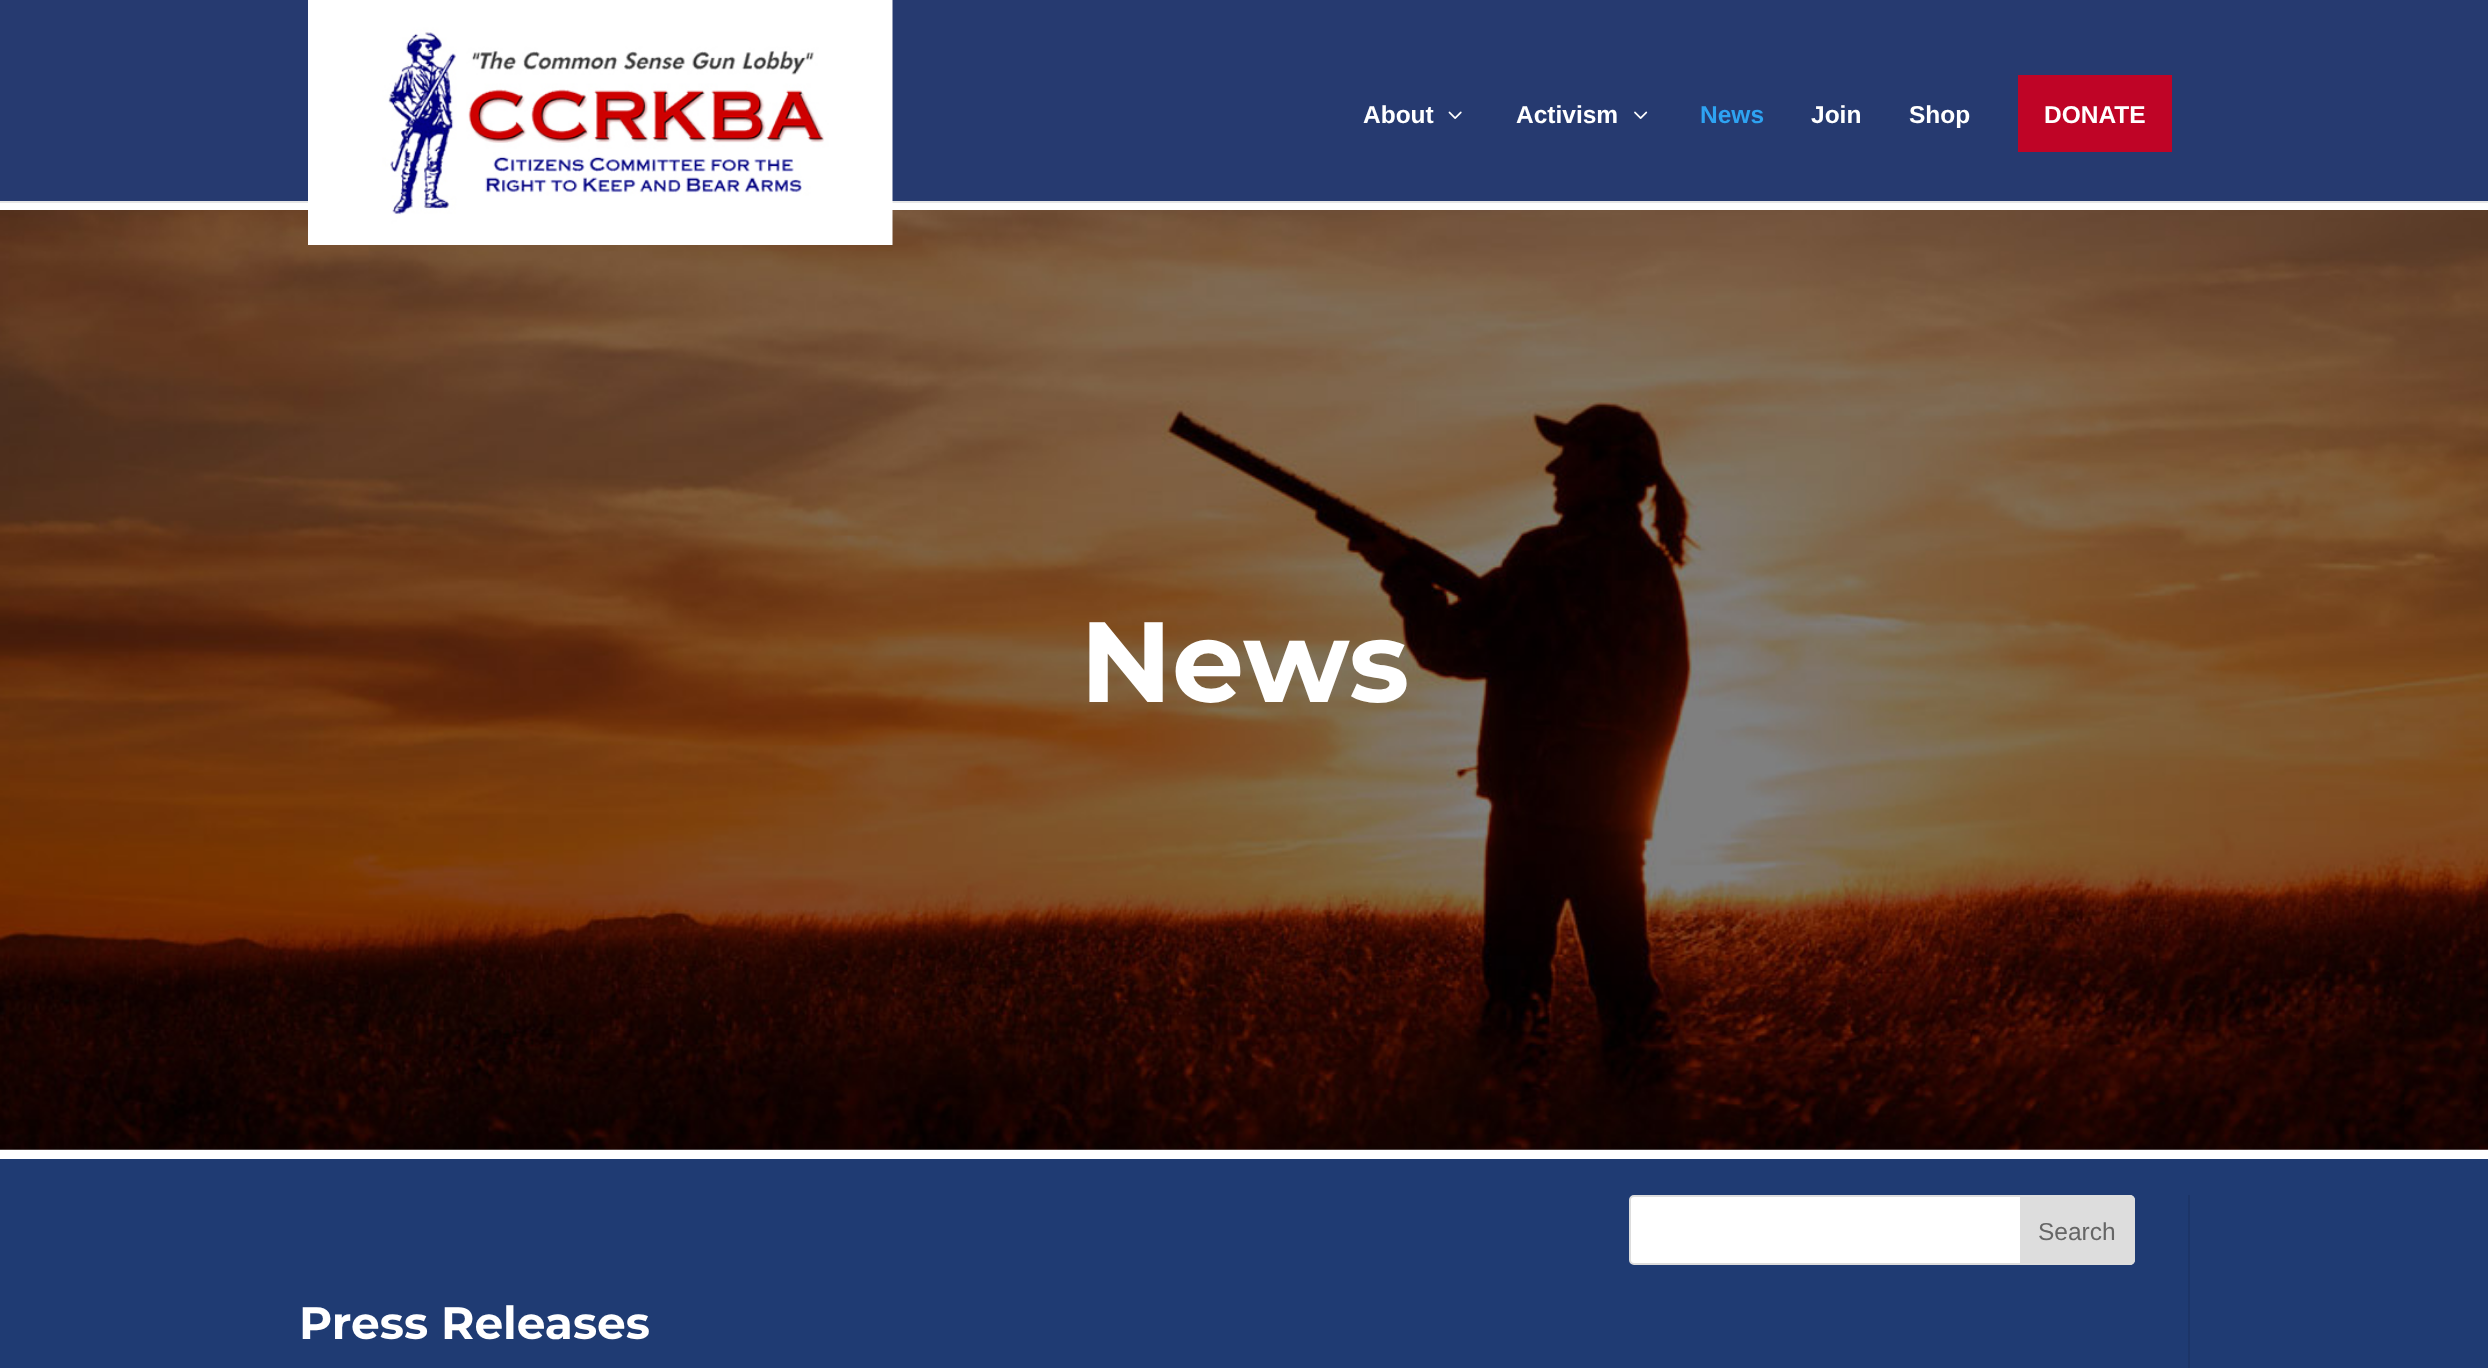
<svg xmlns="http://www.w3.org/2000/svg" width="2488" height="1368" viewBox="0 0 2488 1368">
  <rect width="100%" height="100%" fill="rgb(255,255,255)"/>
  <path d="M0 201V203H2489V2H2488V201Z" fill="rgb(230,230,230)"/>
  <rect x="0" y="0" width="2488" height="201" fill="rgb(38,58,112)"/>
  <image x="0" y="210" width="2488" height="940" href="pic4.png"/>
  <image x="308" y="0" width="585" height="245" href="pic1.png"/>
  <text x="1363" y="123" font-family="Liberation Sans" font-size="24.5" font-weight="bold" fill="rgb(255,255,255)">About</text>
  <image x="1448" y="111" width="14" height="8" href="pic2.png"/>
  <text x="1516" y="123" font-family="Liberation Sans" font-size="24.5" font-weight="bold" fill="rgb(255,255,255)">Activism</text>
  <image x="1634" y="111" width="14" height="8" href="pic3.png"/>
  <text x="1700" y="123" font-family="Liberation Sans" font-size="24.5" font-weight="bold" fill="rgb(46,163,242)">News</text>
  <g font-family="Liberation Sans" font-size="24.5" font-weight="bold" fill="rgb(255,255,255)">
    <text x="1811" y="123">Join</text>
    <text x="1909" y="123">Shop</text>
  </g>
  <rect x="2018" y="75" width="154" height="77" fill="rgb(191,4,38)"/>
  <text x="2044" y="123" font-family="Liberation Sans" font-size="24.5" font-weight="bold" fill="rgb(255,255,255)">DONATE</text>
  <text x="1080" y="702" font-family="Montserrat" font-size="114" font-weight="bold" fill="rgb(255,255,255)">News</text>
  <rect x="0" y="1159" width="2488" height="209" fill="rgb(31,59,115)"/>
  <rect x="2188" y="1195" width="2" height="173" fill="rgb(28,53,104)"/>
  <rect x="1630" y="1196" width="504" height="68" rx="4" fill="rgb(255,255,255)" stroke="rgb(221,221,221)" stroke-width="2"/>
  <path d="M2021 1196H2130C2132 1196 2134 1198 2134 1200V1260C2134 1262 2132 1264 2130 1264H2021Z" fill="rgb(221,221,221)" stroke="rgb(221,221,221)" stroke-width="2"/>
  <text x="2038" y="1240" font-family="Liberation Sans" font-size="24.5" fill="rgb(102,102,102)">Search</text>
  <text x="299" y="1339" font-family="Montserrat" font-size="45.5" font-weight="bold" fill="rgb(255,255,255)">Press Releases</text>
</svg>
